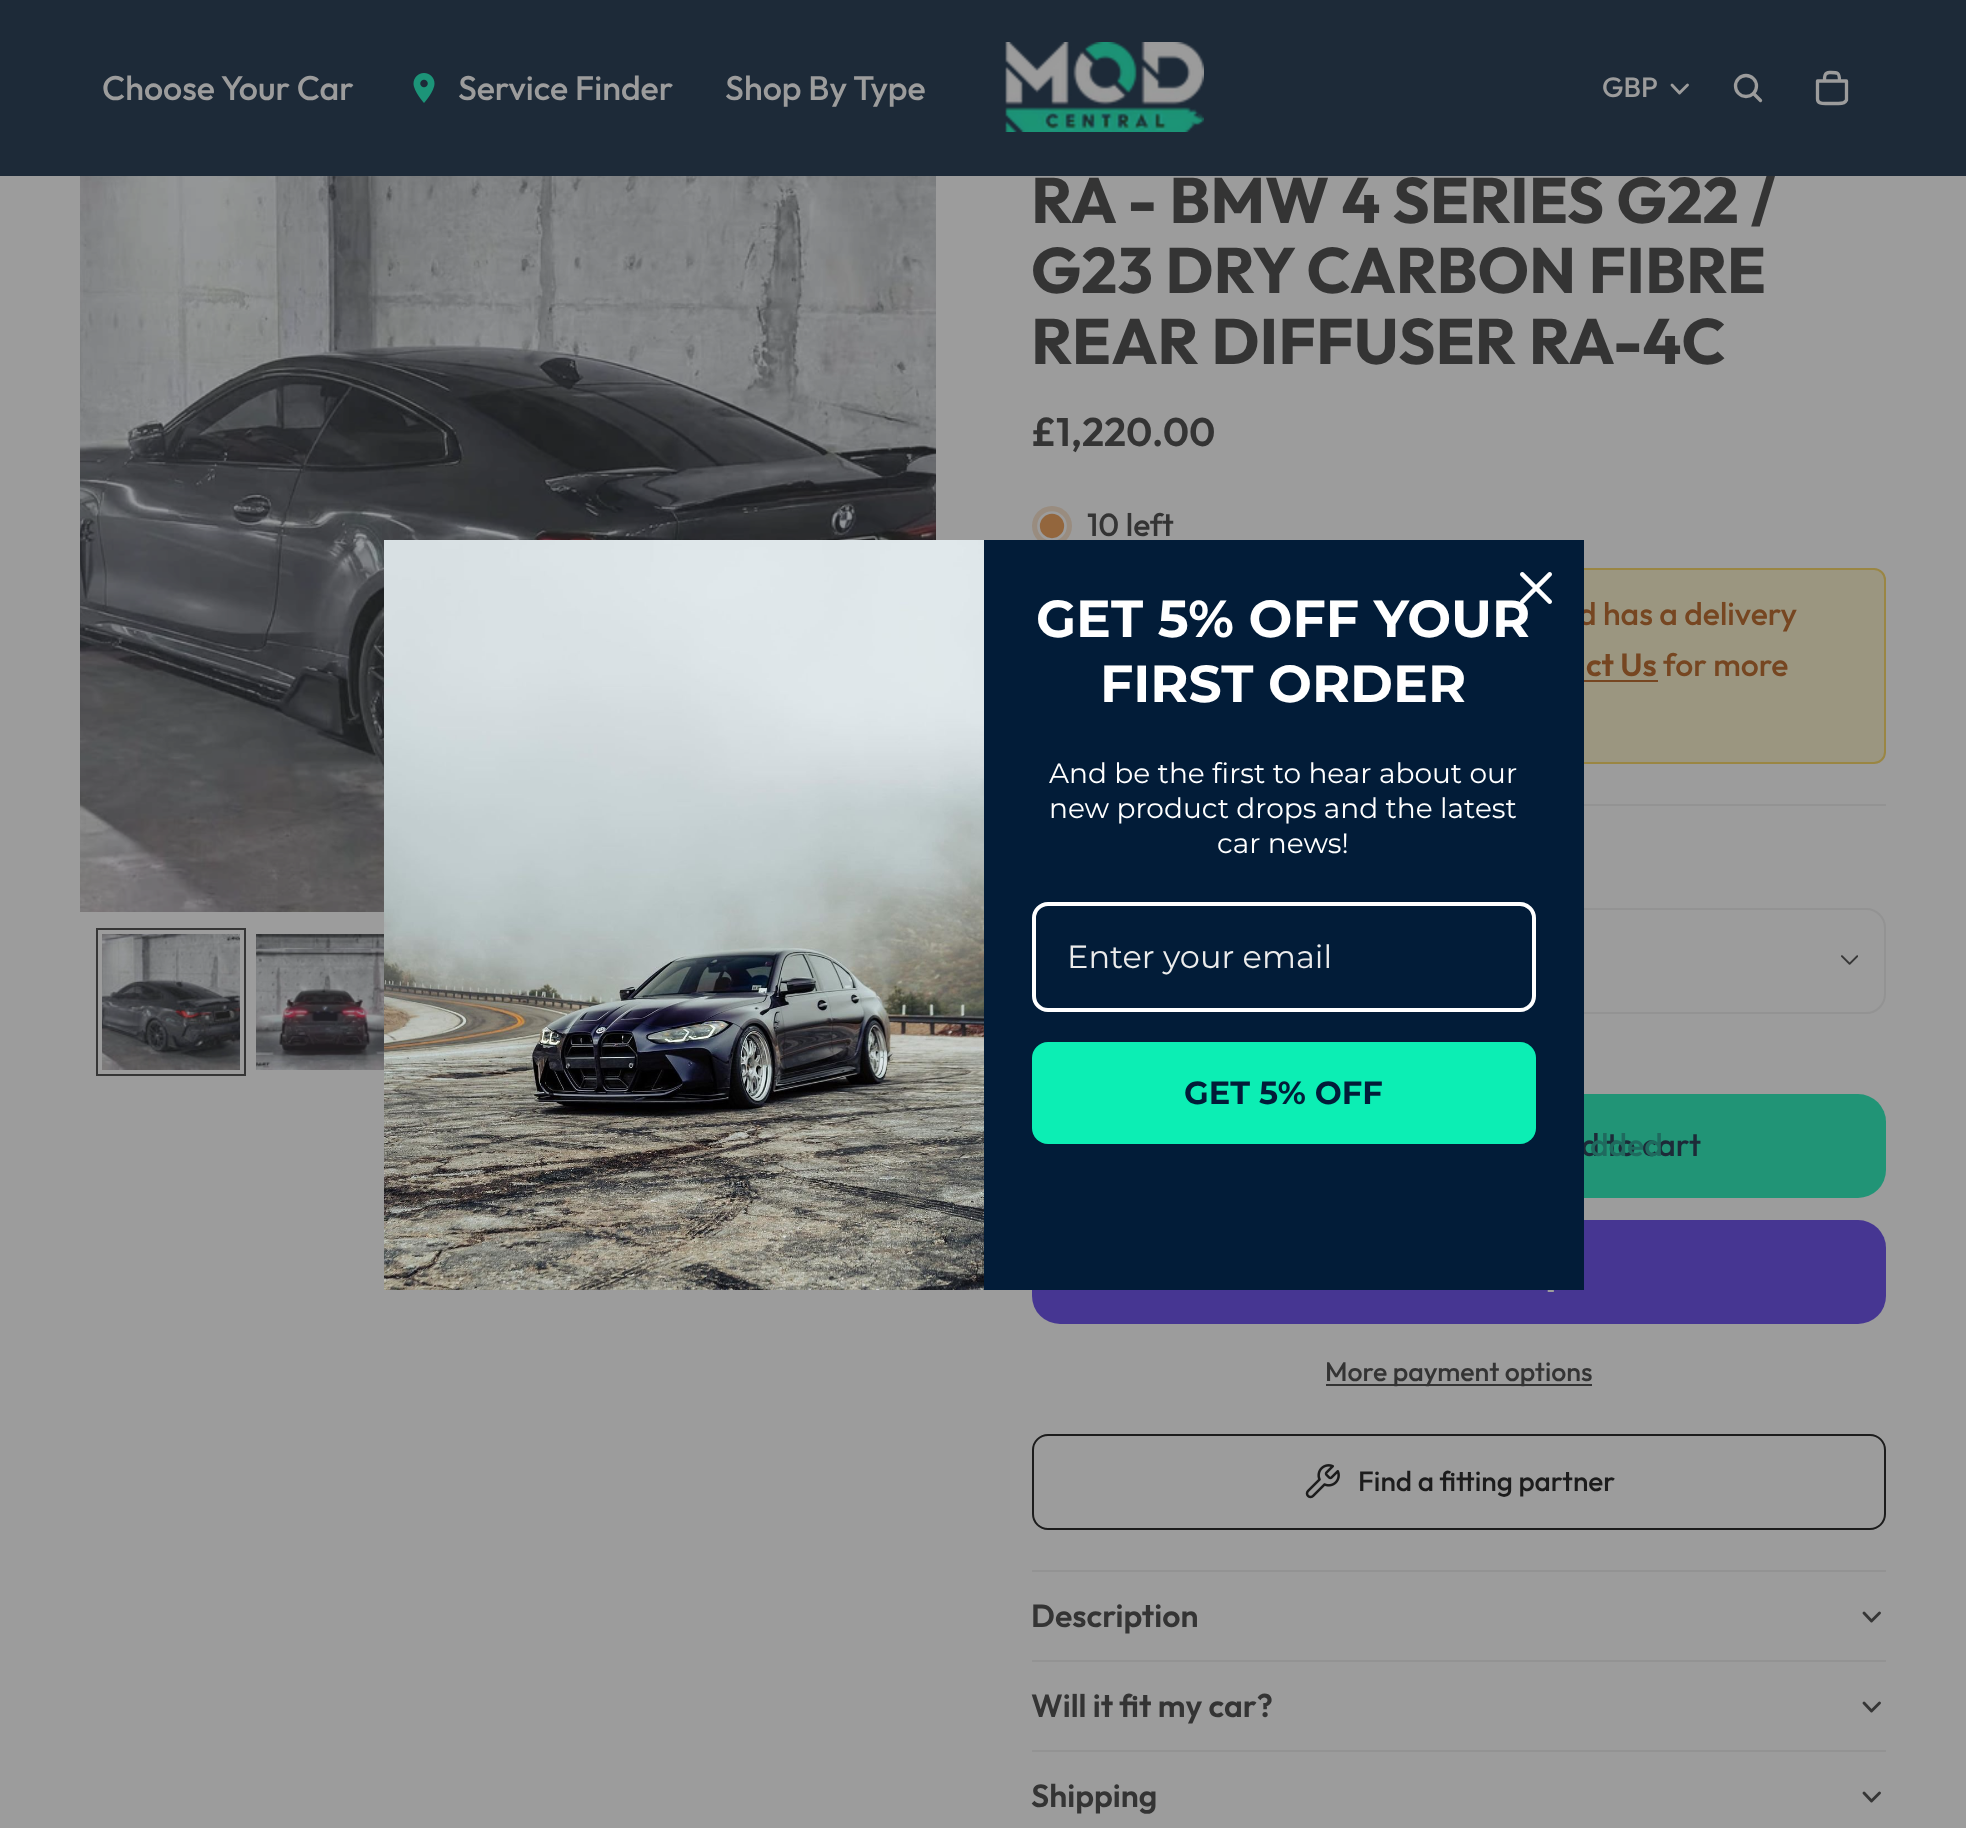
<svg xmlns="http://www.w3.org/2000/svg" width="1966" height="1828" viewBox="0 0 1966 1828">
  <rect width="100%" height="100%" fill="rgb(156,156,156)"/>
  <text x="1031" y="223" font-family="Outfit" font-size="64" font-weight="bold" fill="rgb(52,52,52)">RA - BMW 4 SERIES G22 /</text>
  <rect x="0" y="0" width="1966" height="176" fill="rgb(29,42,56)"/>
  <text x="102" y="100" font-family="Outfit" font-size="34" font-weight="500" fill="rgb(156,156,156)">Choose Your Car</text>
  <image x="413" y="73" width="22" height="30" href="pic1.png"/>
  <g font-family="Outfit" font-size="34" font-weight="500" fill="rgb(156,156,156)">
    <text x="458" y="100">Service Finder</text>
    <text x="725" y="100">Shop By Type</text>
  </g>
  <image x="1005" y="42" width="199" height="90" href="pic2.png"/>
  <text x="1602" y="97" font-family="Outfit" font-size="28" font-weight="500" fill="rgb(156,156,156)">GBP</text>
  <path d="M1687.5 85L1679.5 93L1672 85" fill="none" stroke="rgb(156,156,156)" stroke-width="2.9" stroke-linecap="round" stroke-linejoin="round"/>
  <circle cx="1746" cy="86" r="10.5" fill="none" stroke="rgb(156,156,156)" stroke-width="3.3"/>
  <path d="M1753.5 93.5L1760.5 100.5" fill="none" stroke="rgb(156,156,156)" stroke-width="3.3" stroke-linecap="round" stroke-linejoin="round"/>
  <path d="M1817.5 81H1846.5V100C1845 103.5 1841.5 103.5 1838.5 103.5H1825.5C1822 103.5 1817.5 103.5 1817.5 99ZM1829.5 72.5C1837.5 72.5 1839.5 72 1839.5 81H1824.5C1824.5 77.5 1824 72.5 1829.5 72.5" fill="none" stroke="rgb(156,156,156)" stroke-width="3.3" stroke-linecap="round" stroke-linejoin="round"/>
  <image x="80" y="176" width="856" height="736" href="pic3.png"/>
  <image x="102" y="934" width="138" height="136" href="pic4.png"/>
  <rect x="97" y="929" width="148" height="146" fill="none" stroke="rgb(54,54,54)" stroke-width="2"/>
  <image x="256" y="934" width="128" height="136" href="pic5.png"/>
  <g font-family="Outfit" font-size="64" font-weight="bold" fill="rgb(52,52,52)">
    <text>
      <tspan x="1031" y="293">G23 DRY CARBON FIBRE</tspan>
      <tspan x="1031" y="364">REAR DIFFUSER RA-4C</tspan>
    </text>
  </g>
  <text x="1031" y="446" font-family="Outfit" font-size="40" font-weight="600" fill="rgb(52,52,52)">£1,220.00</text>
  <circle cx="1052" cy="526" r="20" fill="rgb(153,140,127)"/>
  <circle cx="1052" cy="526" r="13.5" fill="rgb(147,102,61)" stroke="rgb(156,156,156)" stroke-width="2.7"/>
  <text x="1087" y="536" font-family="Outfit" font-size="32" font-weight="500" fill="rgb(52,52,52)">10 left</text>
  <rect x="1033" y="569" width="852" height="194" rx="11" fill="rgb(155,150,128)" stroke="rgb(154,134,67)" stroke-width="2"/>
  <text x="1578" y="625" font-family="Outfit" font-size="32" font-weight="500" fill="rgb(118,70,33)">d has a delivery</text>
  <text x="1586" y="676" font-family="Outfit" font-size="32" font-weight="600" fill="rgb(118,70,33)">ct Us</text>
  <rect x="1584" y="680" width="74" height="2" fill="rgb(118,70,33)"/>
  <text x="1663" y="676" font-family="Outfit" font-size="32" font-weight="500" fill="rgb(118,70,33)">for more</text>
  <rect x="1584" y="804" width="302" height="2" fill="rgb(147,147,147)"/>
  <rect x="1033" y="909" width="852" height="104" rx="19" fill="none" stroke="rgb(147,147,147)" stroke-width="2"/>
  <image x="1841" y="955" width="17" height="10" href="pic6.png"/>
  <rect x="1306" y="1094" width="580" height="104" rx="28" fill="rgb(33,148,118)"/>
  <text x="1581" y="1156" font-family="Outfit" font-size="32" font-weight="500" fill="rgb(29,42,56)">d to cart</text>
  <text x="1590" y="1156" font-family="Outfit" font-size="32" font-weight="500" fill="rgb(31,106,94)">dded</text>
  <rect x="1032" y="1220" width="854" height="104" rx="28" fill="rgb(70,54,146)"/>
  <image x="1547" y="1290" width="7" height="2" href="pic7.png"/>
  <rect x="1326" y="1384" width="266" height="2" fill="rgb(52,52,52)"/>
  <text x="1325" y="1381" font-family="Outfit" font-size="26.75" font-weight="500" fill="rgb(52,52,52)">More payment options</text>
  <rect x="1033" y="1435" width="852" height="94" rx="15" fill="none" stroke="rgb(28,28,28)" stroke-width="2"/>
  <image x="1305" y="1464" width="35" height="35" href="pic8.png"/>
  <text x="1358" y="1491" font-family="Outfit" font-size="28" font-weight="500" fill="rgb(28,28,28)">Find a fitting partner</text>
  <rect x="1032" y="1570" width="854" height="2" fill="rgb(147,147,147)"/>
  <text x="1031" y="1627" font-family="Outfit" font-size="32" font-weight="600" fill="rgb(52,52,52)">Description</text>
  <path d="M1879.5 1613L1871.5 1621L1864 1613" fill="none" stroke="rgb(54,54,54)" stroke-width="2.9" stroke-linecap="round" stroke-linejoin="round"/>
  <rect x="1032" y="1660" width="854" height="2" fill="rgb(147,147,147)"/>
  <text x="1031" y="1717" font-family="Outfit" font-size="32" font-weight="600" fill="rgb(52,52,52)">Will it fit my car?</text>
  <path d="M1879.5 1703L1871.5 1711L1864 1703" fill="none" stroke="rgb(54,54,54)" stroke-width="2.9" stroke-linecap="round" stroke-linejoin="round"/>
  <rect x="1032" y="1750" width="854" height="2" fill="rgb(147,147,147)"/>
  <text x="1031" y="1807" font-family="Outfit" font-size="32" font-weight="600" fill="rgb(52,52,52)">Shipping</text>
  <path d="M1879.5 1793L1871.5 1801L1864 1793" fill="none" stroke="rgb(54,54,54)" stroke-width="2.9" stroke-linecap="round" stroke-linejoin="round"/>
  <rect x="984" y="540" width="600" height="750" fill="rgb(2,28,56)"/>
  <text x="1036" y="637" font-family="Montserrat" font-size="52" font-weight="bold" fill="rgb(255,255,255)">GET 5% OFF YOUR</text>
  <image x="1520" y="572" width="32" height="32" href="pic9.png"/>
  <image x="384" y="540" width="600" height="750" href="pic10.png"/>
  <text x="1100" y="702" font-family="Montserrat" font-size="52" font-weight="bold" fill="rgb(255,255,255)">FIRST ORDER</text>
  <g font-family="Montserrat" font-size="28" fill="rgb(255,255,255)">
    <text>
      <tspan x="1049" y="783">And be the first to hear about our</tspan>
      <tspan x="1049" y="818">new product drops and the latest</tspan>
    </text>
    <text x="1217" y="853">car news!</text>
  </g>
  <rect x="1034" y="904" width="500" height="106" rx="14" fill="none" stroke="rgb(255,255,255)" stroke-width="4"/>
  <text x="1067" y="968" font-family="Montserrat" font-size="32" fill="rgb(236,236,236)">Enter your email</text>
  <rect x="1032" y="1042" width="504" height="102" rx="16" fill="rgb(12,238,180)"/>
  <text x="1184" y="1104" font-family="Montserrat" font-size="32" font-weight="bold" fill="rgb(2,28,56)">GET 5% OFF</text>
</svg>
